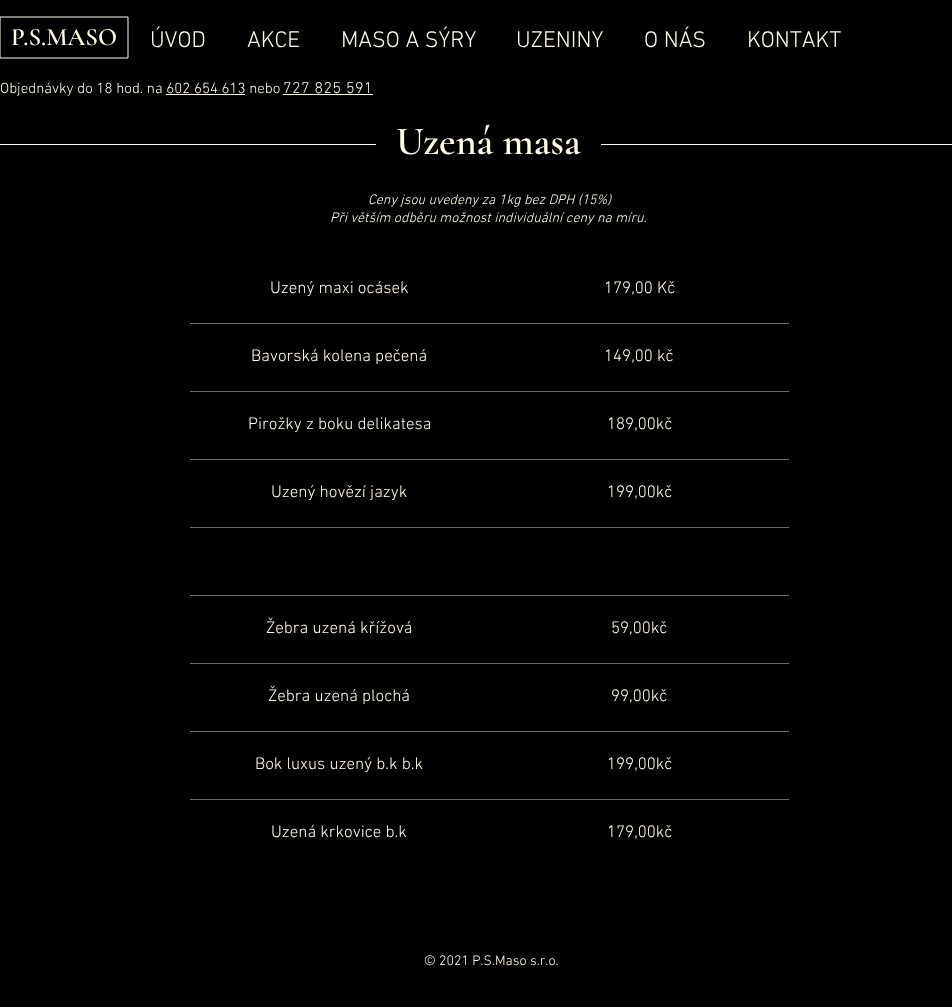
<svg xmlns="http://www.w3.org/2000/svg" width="952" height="1007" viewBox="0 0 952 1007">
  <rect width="100%" height="100%" fill="rgb(0,0,0)"/>
  <path d="M128 17V58H0V17Z" fill="none" stroke="rgb(255,250,227)"/>
  <text x="11" y="45" font-family="Cormorant Garamond" font-size="25" font-weight="600" fill="rgb(255,250,227)">P.S.MASO</text>
  <g font-family="'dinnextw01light'" font-size="23" font-weight="300" fill="rgb(255,250,227)">
    <text x="150" y="47">ÚVOD</text>
    <text x="247" y="47">AKCE</text>
    <text x="341" y="47">MASO A SÝRY</text>
    <text x="516" y="47">UZENINY</text>
    <text x="644" y="47">O NÁS</text>
    <text x="747" y="47">KONTAKT</text>
  </g>
  <text x="0" y="93" font-family="'dinnextw01light'" font-size="15" font-weight="300" fill="rgb(255,250,227)">Objednávky do 18 hod. na 602 654 613 nebo</text>
  <rect x="166" y="94" width="79" height="1" fill="rgb(255,250,227)"/>
  <text x="283" y="93" font-family="'dinnextw01light'" font-size="16" font-weight="300" letter-spacing="0.5" fill="rgb(255,250,227)">727 825 591</text>
  <rect x="283" y="94" width="90" height="1" fill="rgb(255,250,227)"/>
  <rect x="0" y="144" width="952" height="1" fill="rgb(255,250,227)"/>
  <rect x="376" y="144" width="225" height="1" fill="rgb(0,0,0)"/>
  <text x="396" y="154" font-family="Cormorant Garamond" font-size="40" font-weight="600" fill="rgb(255,250,227)">Uzená masa</text>
  <g font-family="'dinnextw01light'" font-size="14" font-weight="300" font-style="italic" fill="rgb(255,250,227)">
    <text x="368" y="204">Ceny jsou uvedeny za 1kg bez DPH (15%)</text>
    <text x="330" y="222">Při větším odběru možnost individuální ceny na míru.</text>
  </g>
  <rect x="190" y="323" width="599" height="1" fill="rgb(107,107,107)"/>
  <g font-family="'dinnextw01light'" font-size="17" font-weight="300" fill="rgb(255,250,227)">
    <text x="270" y="293">Uzený maxi ocásek</text>
    <text x="604" y="293">179,00 Kč</text>
  </g>
  <rect x="190" y="391" width="599" height="1" fill="rgb(107,107,107)"/>
  <g font-family="'dinnextw01light'" font-size="17" font-weight="300" fill="rgb(255,250,227)">
    <text x="251" y="361">Bavorská kolena pečená</text>
    <text x="604" y="361">149,00 kč</text>
  </g>
  <rect x="190" y="459" width="599" height="1" fill="rgb(107,107,107)"/>
  <g font-family="'dinnextw01light'" font-size="17" font-weight="300" fill="rgb(255,250,227)">
    <text x="248" y="429">Pirožky z boku delikatesa</text>
    <text x="607" y="429">189,00kč</text>
  </g>
  <rect x="190" y="527" width="599" height="1" fill="rgb(107,107,107)"/>
  <g font-family="'dinnextw01light'" font-size="17" font-weight="300" fill="rgb(255,250,227)">
    <text x="271" y="497">Uzený hovězí jazyk</text>
    <text x="607" y="497">199,00kč</text>
  </g>
  <rect x="190" y="595" width="599" height="1" fill="rgb(107,107,107)"/>
  <rect x="190" y="663" width="599" height="1" fill="rgb(107,107,107)"/>
  <g font-family="'dinnextw01light'" font-size="17" font-weight="300" fill="rgb(255,250,227)">
    <text x="266" y="633">Žebra uzená křížová</text>
    <text x="611" y="633">59,00kč</text>
  </g>
  <rect x="190" y="731" width="599" height="1" fill="rgb(107,107,107)"/>
  <g font-family="'dinnextw01light'" font-size="17" font-weight="300" fill="rgb(255,250,227)">
    <text x="268" y="701">Žebra uzená plochá</text>
    <text x="611" y="701">99,00kč</text>
  </g>
  <rect x="190" y="799" width="599" height="1" fill="rgb(107,107,107)"/>
  <g font-family="'dinnextw01light'" font-size="17" font-weight="300" fill="rgb(255,250,227)">
    <text x="255" y="769">Bok luxus uzený b.k b.k</text>
    <text x="607" y="769">199,00kč</text>
    <text x="271" y="837">Uzená krkovice b.k</text>
    <text x="607" y="837">179,00kč</text>
  </g>
  <text x="424" y="965" font-family="'dinnextw01light'" font-size="14" font-weight="300" fill="rgb(255,250,227)">© 2021 P.S.Maso s.r.o.</text>
</svg>
